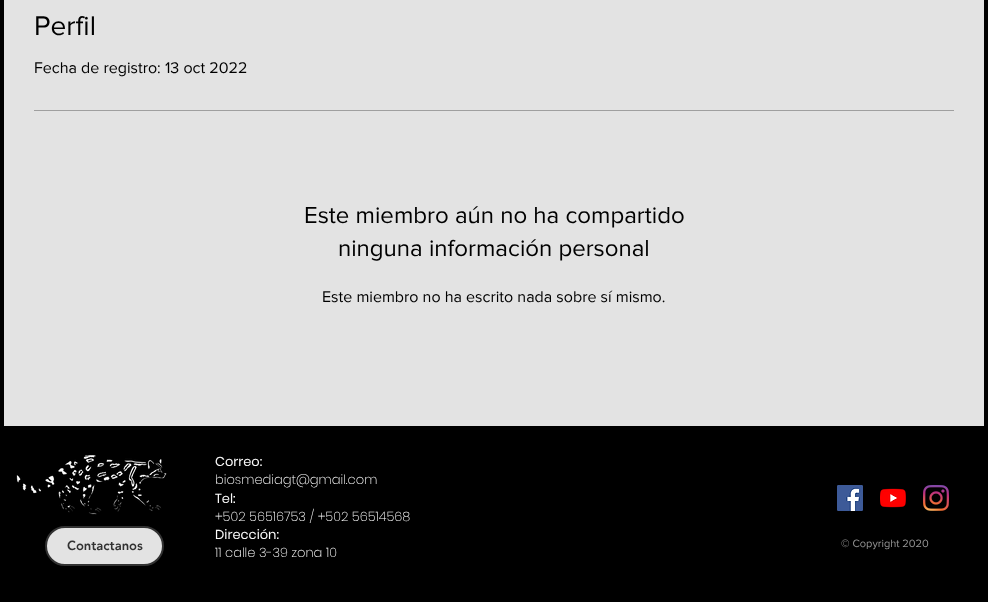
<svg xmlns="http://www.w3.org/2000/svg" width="988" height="602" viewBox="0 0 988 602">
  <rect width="100%" height="100%" fill="rgb(0,0,0)"/>
  <rect x="4" y="0" width="980" height="426" fill="rgb(227,227,227)"/>
  <text x="34" y="35" font-family="'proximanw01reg'" font-size="28" fill="rgb(0,0,0)">Perfil</text>
  <text x="34" y="73" font-family="'proximanw01reg'" font-size="16" fill="rgb(0,0,0)">Fecha de registro: 13 oct 2022</text>
  <rect x="34" y="110" width="920" height="1" fill="rgb(159,159,159)"/>
  <g font-family="'proximanw01reg'" font-size="24" fill="rgb(0,0,0)">
    <text x="304" y="223">Este miembro aún no ha compartido</text>
    <text x="338" y="256">ninguna información personal</text>
  </g>
  <text x="322" y="302" font-family="'proximanw01reg'" font-size="16" fill="rgb(0,0,0)">Este miembro no ha escrito nada sobre sí mismo.</text>
  <image x="16" y="455" width="151" height="60" href="pic1.png"/>
  <text x="215" y="466" font-family="Poppins" font-size="13" fill="rgb(250,250,250)">Correo:</text>
  <text x="215" y="484" font-family="Poppins" font-size="13" font-weight="200" fill="rgb(250,250,250)">biosmediagt@gmail.com</text>
  <text x="215" y="503" font-family="Poppins" font-size="13" fill="rgb(250,250,250)">Tel:</text>
  <text x="215" y="521" font-family="Poppins" font-size="13" font-weight="200" fill="rgb(250,250,250)">+502 56516753 / +502 56514568</text>
  <text x="215" y="539" font-family="Poppins" font-size="13" fill="rgb(250,250,250)">Dirección:</text>
  <text x="215" y="557" font-family="Poppins" font-size="13" font-weight="200" fill="rgb(250,250,250)">11 calle 3-39 zona 10</text>
  <image x="837" y="485" width="26" height="26" href="pic2.png"/>
  <image x="880" y="488" width="26" height="20" href="pic3.png"/>
  <image x="923" y="485" width="26" height="26" href="pic4.png"/>
  <rect x="46" y="527" width="117" height="38" rx="19" fill="rgb(227,227,227)" stroke="rgb(50,50,50)" stroke-width="2"/>
  <text x="67" y="550" font-family="'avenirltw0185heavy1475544'" font-size="13" font-weight="900" fill="rgb(50,50,50)">Contactanos</text>
  <text x="841" y="547" font-family="'proximanw01reg'" font-size="11" fill="rgb(149,149,149)">© Copyright 2020</text>
</svg>
